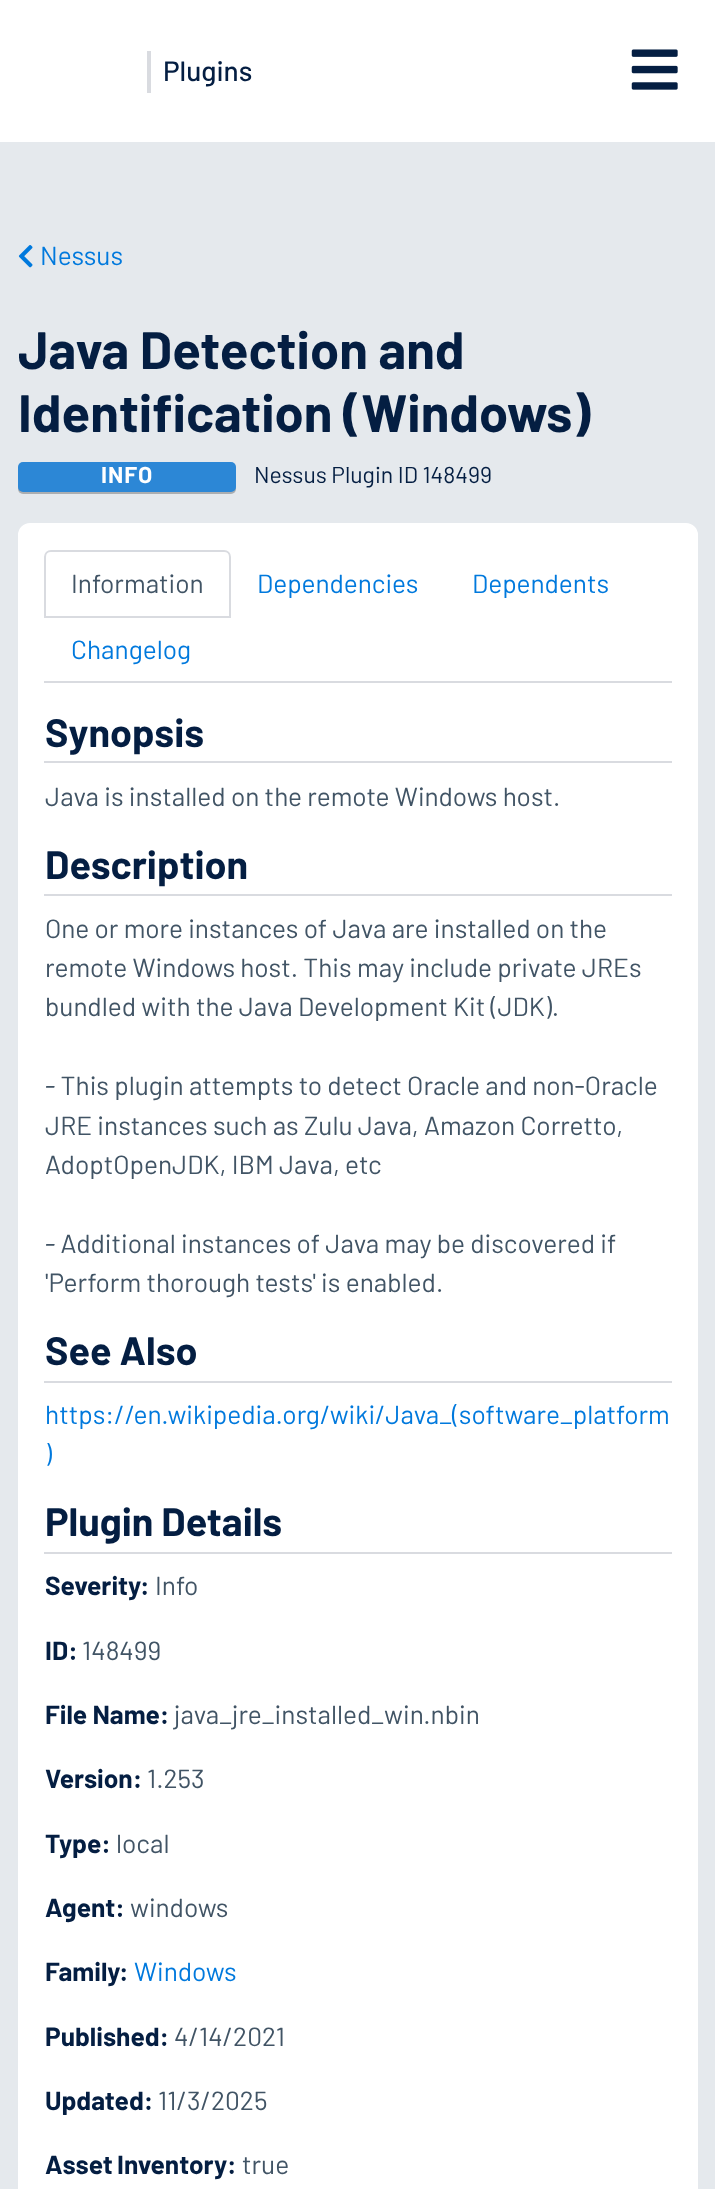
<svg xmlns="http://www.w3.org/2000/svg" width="715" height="2189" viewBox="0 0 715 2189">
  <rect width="100%" height="100%" fill="rgb(255,255,255)"/>
  <rect x="147" y="51" width="4" height="42" fill="rgb(217,219,224)"/>
  <text x="163" y="81" font-family="Barlow" font-size="28" font-weight="500" fill="rgb(4,30,66)">Plugins</text>
  <image x="631" y="49" width="47" height="41" href="pic1.png"/>
  <rect x="0" y="142" width="715" height="2047" fill="rgb(229,233,237)"/>
  <image x="18" y="245" width="15" height="23" href="pic2.png"/>
  <text x="40" y="265" font-family="Barlow" font-size="26.25" fill="rgb(0,121,221)">Nessus</text>
  <g font-family="Barlow" font-size="52.5" font-weight="bold" fill="rgb(4,30,66)">
    <text>
      <tspan x="18" y="369">Java Detection and</tspan>
      <tspan x="18" y="432">Identification (Windows)</tspan>
    </text>
  </g>
  <rect x="18" y="464" width="218" height="30" rx="5" fill="rgba(0,0,0,0.25)" filter="blur(0.5px)"/>
  <rect x="18" y="462" width="218" height="30" rx="5" fill="rgb(44,135,214)"/>
  <text x="101" y="483" font-family="Barlow" font-size="23" font-weight="bold" letter-spacing="1" fill="rgb(255,255,255)">INFO</text>
  <text x="254" y="483" font-family="Barlow" font-size="23" fill="rgb(4,30,66)">Nessus Plugin ID 148499</text>
  <rect x="19" y="524" width="678" height="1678" rx="11" fill="rgb(255,255,255)" stroke="rgb(255,255,255)" stroke-width="2"/>
  <rect x="44" y="681" width="628" height="2" fill="rgb(217,219,224)"/>
  <path d="M51 551H224C227.5 551 230 553.5 230 557V617H45V557C45 553.5 47.5 551 51 551Z" fill="none" stroke="rgb(217,219,224)" stroke-width="2"/>
  <text x="71" y="593" font-family="Barlow" font-size="26.25" fill="rgb(65,84,101)">Information</text>
  <g font-family="Barlow" font-size="26.25" fill="rgb(0,121,221)">
    <text x="257" y="593">Dependencies</text>
    <text x="472" y="593">Dependents</text>
    <text x="71" y="659">Changelog</text>
  </g>
  <rect x="44" y="761" width="628" height="2" fill="rgb(217,219,224)"/>
  <text x="45" y="747" font-family="Barlow" font-size="39.5" font-weight="bold" fill="rgb(4,30,66)">Synopsis</text>
  <text x="45" y="806" font-family="Barlow" font-size="26.25" fill="rgb(65,84,101)">Java is installed on the remote Windows host.</text>
  <rect x="44" y="894" width="628" height="2" fill="rgb(217,219,224)"/>
  <text x="45" y="879" font-family="Barlow" font-size="39.5" font-weight="bold" fill="rgb(4,30,66)">Description</text>
  <g font-family="Barlow" font-size="26.25" fill="rgb(65,84,101)">
    <text>
      <tspan x="45" y="938">One or more instances of Java are installed on the</tspan>
      <tspan x="45" y="977">remote Windows host. This may include private JREs</tspan>
      <tspan x="45" y="1016">bundled with the Java Development Kit (JDK).</tspan>
    </text>
    <text>
      <tspan x="45" y="1095">- This plugin attempts to detect Oracle and non-Oracle</tspan>
      <tspan x="45" y="1135">JRE instances such as Zulu Java, Amazon Corretto,</tspan>
      <tspan x="45" y="1174">AdoptOpenJDK, IBM Java, etc</tspan>
    </text>
    <text>
      <tspan x="45" y="1253">- Additional instances of Java may be discovered if</tspan>
      <tspan x="45" y="1292">'Perform thorough tests' is enabled.</tspan>
    </text>
  </g>
  <rect x="44" y="1381" width="628" height="2" fill="rgb(217,219,224)"/>
  <text x="45" y="1365" font-family="Barlow" font-size="39.5" font-weight="bold" fill="rgb(4,30,66)">See Also</text>
  <g font-family="Barlow" font-size="26.25" fill="rgb(0,121,221)">
    <text>
      <tspan x="45" y="1424">https://en.wikipedia.org/wiki/Java_(software_platform</tspan>
      <tspan x="45" y="1463">)</tspan>
    </text>
  </g>
  <rect x="44" y="1552" width="628" height="2" fill="rgb(217,219,224)"/>
  <text x="45" y="1536" font-family="Barlow" font-size="39.5" font-weight="bold" fill="rgb(4,30,66)">Plugin Details</text>
  <g font-family="Barlow" font-size="26.25" font-weight="bold" fill="rgb(4,30,66)">
    <text x="45" y="1595">Severity</text>
    <text x="140" y="1595">:</text>
  </g>
  <text x="155" y="1595" font-family="Barlow" font-size="26.25" fill="rgb(65,84,101)">Info</text>
  <text x="45" y="1660" font-family="Barlow" font-size="26.25" font-weight="bold" fill="rgb(4,30,66)">ID:</text>
  <text x="82" y="1660" font-family="Barlow" font-size="26.25" fill="rgb(65,84,101)">148499</text>
  <text x="45" y="1724" font-family="Barlow" font-size="26.25" font-weight="bold" fill="rgb(4,30,66)">File Name:</text>
  <text x="174" y="1724" font-family="Barlow" font-size="26.25" fill="rgb(65,84,101)">java_jre_installed_win.nbin</text>
  <text x="45" y="1788" font-family="Barlow" font-size="26.25" font-weight="bold" fill="rgb(4,30,66)">Version:</text>
  <text x="147" y="1788" font-family="Barlow" font-size="26.25" fill="rgb(65,84,101)">1.253</text>
  <text x="45" y="1853" font-family="Barlow" font-size="26.25" font-weight="bold" fill="rgb(4,30,66)">Type:</text>
  <text x="116" y="1853" font-family="Barlow" font-size="26.25" fill="rgb(65,84,101)">local</text>
  <text x="45" y="1917" font-family="Barlow" font-size="26.25" font-weight="bold" fill="rgb(4,30,66)">Agent:</text>
  <text x="130" y="1917" font-family="Barlow" font-size="26.25" fill="rgb(65,84,101)">windows</text>
  <g font-family="Barlow" font-size="26.25" font-weight="bold" fill="rgb(4,30,66)">
    <text x="45" y="1981">Family</text>
    <text x="119" y="1981">:</text>
  </g>
  <text x="134" y="1981" font-family="Barlow" font-size="26.25" fill="rgb(0,121,221)">Windows</text>
  <text x="45" y="2046" font-family="Barlow" font-size="26.25" font-weight="bold" fill="rgb(4,30,66)">Published:</text>
  <text x="174" y="2046" font-family="Barlow" font-size="26.25" fill="rgb(65,84,101)">4/14/2021</text>
  <text x="45" y="2110" font-family="Barlow" font-size="26.25" font-weight="bold" fill="rgb(4,30,66)">Updated:</text>
  <text x="158" y="2110" font-family="Barlow" font-size="26.25" fill="rgb(65,84,101)">11/3/2025</text>
  <g font-family="Barlow" font-size="26.25" font-weight="bold" fill="rgb(4,30,66)">
    <text x="45" y="2174" word-spacing="-1">Asset Inventory</text>
    <text x="227" y="2174">:</text>
  </g>
  <text x="242" y="2174" font-family="Barlow" font-size="26.25" fill="rgb(65,84,101)">true</text>
</svg>
